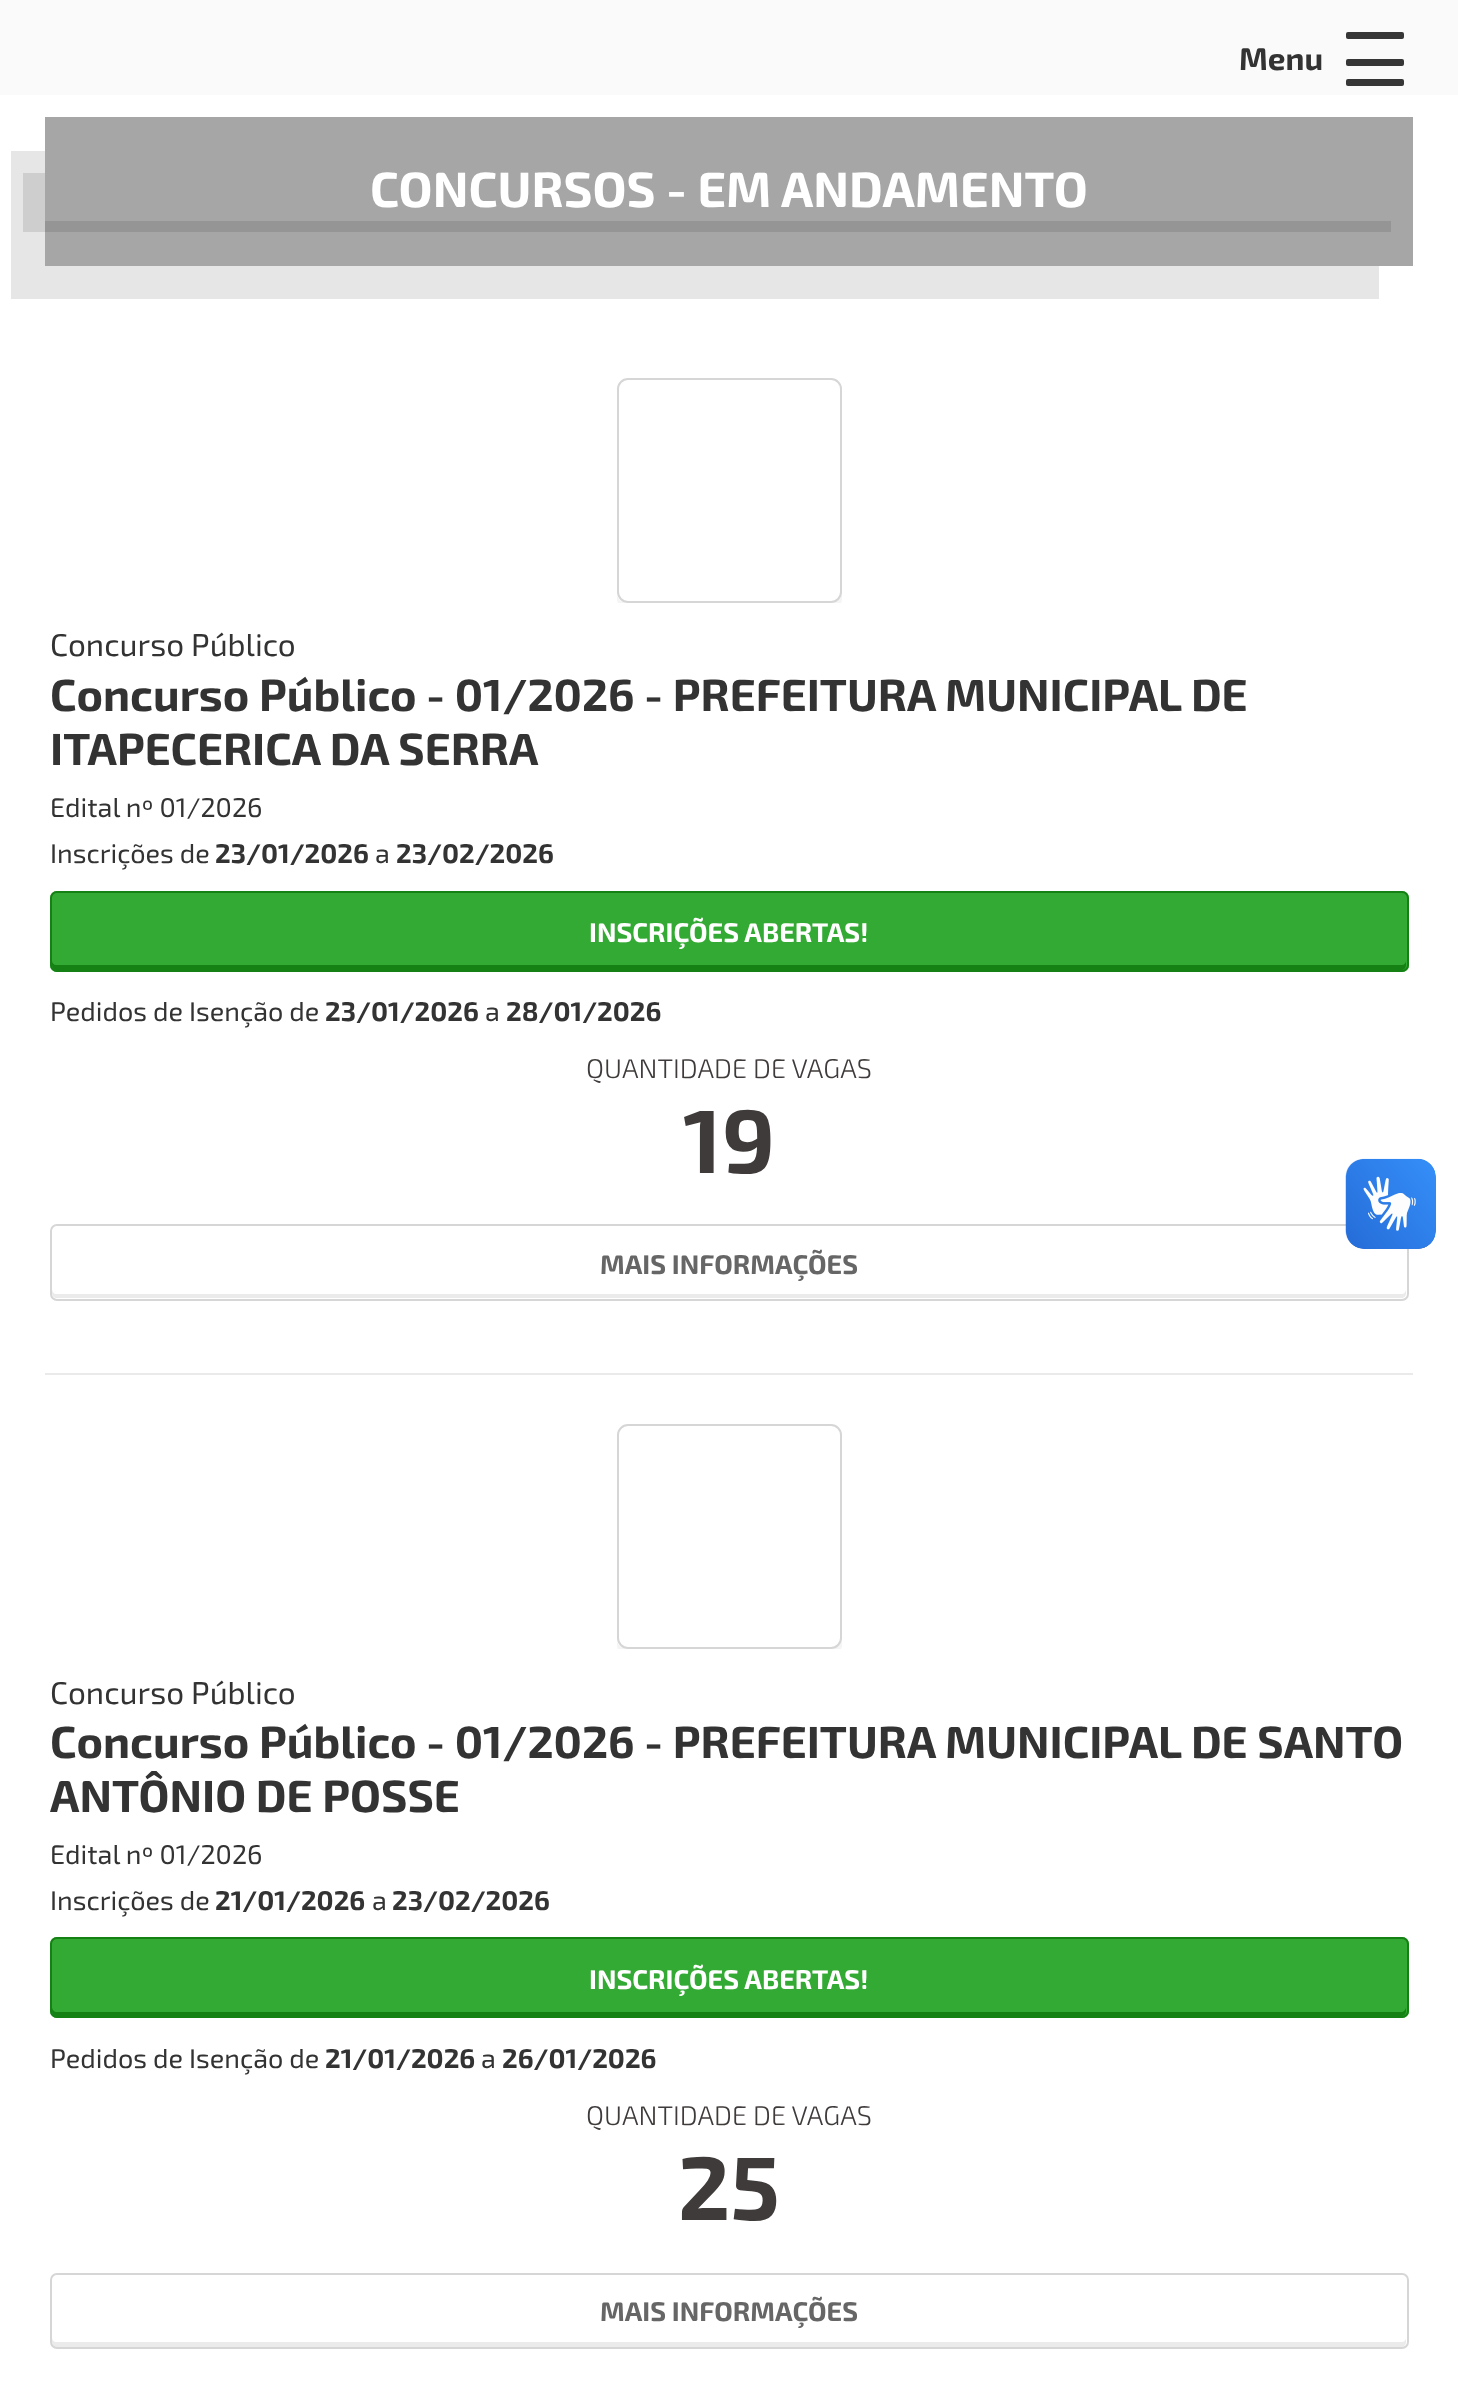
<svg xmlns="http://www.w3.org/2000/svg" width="1458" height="2407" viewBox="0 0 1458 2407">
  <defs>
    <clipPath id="clip1"><rect x="50" y="378" width="1359" height="225"/></clipPath>
    <clipPath id="clip2"><rect x="50" y="1424" width="1359" height="225"/></clipPath>
  </defs>
  <rect width="100%" height="100%" fill="rgb(250,250,250)"/>
  <text x="1239" y="70" font-family="'Exo 2'" font-size="31.5" font-weight="bold" fill="rgb(51,51,51)">Menu</text>
  <rect x="1346" y="32" width="58" height="7" rx="2" fill="rgb(54,54,54)"/>
  <rect x="1346" y="59" width="58" height="7" rx="2" fill="rgb(54,54,54)"/>
  <rect x="1346" y="79" width="58" height="7" rx="2" fill="rgb(54,54,54)"/>
  <rect x="0" y="95" width="1458" height="2312" fill="rgb(255,255,255)"/>
  <path d="M11 151V299H1379V266H45V151Z" fill="rgb(230,230,230)"/>
  <rect x="45" y="117" width="1368" height="149" fill="rgb(166,166,166)"/>
  <path d="M23 173V232H1391V220H45V173Z" fill="rgba(0,0,0,0.1)"/>
  <rect x="45" y="220" width="1346" height="1" fill="rgb(166,166,166)"/>
  <text x="370" y="207" font-family="'Exo 2'" font-size="49.5" font-weight="bold" fill="rgb(255,255,255)">CONCURSOS - EM ANDAMENTO</text>
  <rect x="45" y="1373" width="1368" height="2" fill="rgb(234,234,234)"/>
  <g clip-path="url(#clip1)">
    <path d="M617 595V599C617 605 622 610 628 610H831C837 610 842 605 842 599V396V393V592C842 598 836 603 830 603H628C623 603 618 600 617 595Z" fill="rgb(245,245,245)"/>
  </g>
  <rect x="618" y="379" width="223" height="223" rx="10" fill="none" stroke="rgb(214,214,214)" stroke-width="2"/>
  <text x="50" y="656" font-family="'Exo 2'" font-size="31.5" fill="rgb(51,51,51)">Concurso Público</text>
  <g font-family="'Exo 2'" font-size="45" font-weight="bold" fill="rgb(51,51,51)">
    <text>
      <tspan x="50" y="711">Concurso Público - 01/2026 - PREFEITURA MUNICIPAL DE</tspan>
      <tspan x="50" y="765">ITAPECERICA DA SERRA</tspan>
    </text>
  </g>
  <g font-family="'Exo 2'" font-size="27" fill="rgb(51,51,51)">
    <text>
      <tspan x="50" y="817">Edital nº 01/2026</tspan>
      <tspan x="50" y="863">Inscrições de</tspan>
    </text>
  </g>
  <text x="215" y="863" font-family="'Exo 2'" font-size="27" font-weight="bold" fill="rgb(51,51,51)">23/01/2026</text>
  <text x="375" y="863" font-family="'Exo 2'" font-size="27" fill="rgb(51,51,51)">a</text>
  <text x="396" y="863" font-family="'Exo 2'" font-size="27" font-weight="bold" fill="rgb(51,51,51)">23/02/2026</text>
  <rect x="50" y="891" width="1359" height="81" rx="7" fill="rgb(51,170,51)"/>
  <path d="M52 961V965C52 968 54 970 57 970H1401C1404 970 1406 968 1406 965V961C1406 963 1404 965 1402 965H56C54 965 52 963 52 961Z" fill="rgb(21,129,21)"/>
  <rect x="51" y="892" width="1357" height="79" rx="6" fill="none" stroke="rgb(21,129,21)" stroke-width="2"/>
  <text x="589" y="942" font-family="'Exo 2'" font-size="27" font-weight="bold" fill="rgb(255,255,255)">INSCRIÇÕES ABERTAS!</text>
  <text x="50" y="1021" font-family="'Exo 2'" font-size="27" fill="rgb(51,51,51)">Pedidos de Isenção de</text>
  <text x="325" y="1021" font-family="'Exo 2'" font-size="27" font-weight="bold" fill="rgb(51,51,51)">23/01/2026</text>
  <text x="485" y="1021" font-family="'Exo 2'" font-size="27" fill="rgb(51,51,51)">a</text>
  <text x="506" y="1021" font-family="'Exo 2'" font-size="27" font-weight="bold" fill="rgb(51,51,51)">28/01/2026</text>
  <text x="586" y="1078" font-family="'Exo 2'" font-size="27" font-weight="300" fill="rgb(63,59,58)">QUANTIDADE DE VAGAS</text>
  <text x="683" y="1173" font-family="'Exo 2'" font-size="90" font-weight="bold" fill="rgb(63,59,58)">19</text>
  <path d="M52 1289V1293C52 1296 54 1298 57 1298H1401C1404 1298 1406 1296 1406 1293V1289C1406 1292 1404 1294 1402 1294H56C54 1294 52 1292 52 1289Z" fill="rgb(235,235,235)"/>
  <rect x="51" y="1225" width="1357" height="75" rx="6" fill="none" stroke="rgb(214,214,214)" stroke-width="2"/>
  <text x="600" y="1274" font-family="'Exo 2'" font-size="27" font-weight="bold" fill="rgb(102,102,102)">MAIS INFORMAÇÕES</text>
  <g clip-path="url(#clip2)">
    <path d="M617 1641V1645C617 1651 622 1656 628 1656H831C837 1656 842 1651 842 1645V1442V1439V1638C842 1644 836 1649 830 1649H628C623 1649 618 1646 617 1641Z" fill="rgb(245,245,245)"/>
  </g>
  <rect x="618" y="1425" width="223" height="223" rx="10" fill="none" stroke="rgb(214,214,214)" stroke-width="2"/>
  <text x="50" y="1704" font-family="'Exo 2'" font-size="31.5" fill="rgb(51,51,51)">Concurso Público</text>
  <g font-family="'Exo 2'" font-size="45" font-weight="bold" fill="rgb(51,51,51)">
    <text>
      <tspan x="50" y="1758">Concurso Público - 01/2026 - PREFEITURA MUNICIPAL DE SANTO</tspan>
      <tspan x="50" y="1812">ANTÔNIO DE POSSE</tspan>
    </text>
  </g>
  <g font-family="'Exo 2'" font-size="27" fill="rgb(51,51,51)">
    <text>
      <tspan x="50" y="1864">Edital nº 01/2026</tspan>
      <tspan x="50" y="1910">Inscrições de</tspan>
    </text>
  </g>
  <text x="215" y="1910" font-family="'Exo 2'" font-size="27" font-weight="bold" fill="rgb(51,51,51)">21/01/2026</text>
  <text x="372" y="1910" font-family="'Exo 2'" font-size="27" fill="rgb(51,51,51)">a</text>
  <text x="392" y="1910" font-family="'Exo 2'" font-size="27" font-weight="bold" fill="rgb(51,51,51)">23/02/2026</text>
  <rect x="50" y="1937" width="1359" height="81" rx="7" fill="rgb(51,170,51)"/>
  <path d="M52 2007V2011C52 2014 54 2016 57 2016H1401C1404 2016 1406 2014 1406 2011V2007C1406 2009 1404 2012 1402 2012H56C54 2012 52 2009 52 2007Z" fill="rgb(21,129,21)"/>
  <rect x="51" y="1938" width="1357" height="79" rx="6" fill="none" stroke="rgb(21,129,21)" stroke-width="2"/>
  <text x="589" y="1989" font-family="'Exo 2'" font-size="27" font-weight="bold" fill="rgb(255,255,255)">INSCRIÇÕES ABERTAS!</text>
  <text x="50" y="2068" font-family="'Exo 2'" font-size="27" fill="rgb(51,51,51)">Pedidos de Isenção de</text>
  <text x="325" y="2068" font-family="'Exo 2'" font-size="27" font-weight="bold" fill="rgb(51,51,51)">21/01/2026</text>
  <text x="481" y="2068" font-family="'Exo 2'" font-size="27" fill="rgb(51,51,51)">a</text>
  <text x="502" y="2068" font-family="'Exo 2'" font-size="27" font-weight="bold" fill="rgb(51,51,51)">26/01/2026</text>
  <text x="586" y="2125" font-family="'Exo 2'" font-size="27" font-weight="300" fill="rgb(63,59,58)">QUANTIDADE DE VAGAS</text>
  <text x="678" y="2220" font-family="'Exo 2'" font-size="90" font-weight="bold" fill="rgb(63,59,58)">25</text>
  <path d="M52 2338V2342C52 2345 54 2347 57 2347H1401C1404 2347 1406 2345 1406 2342V2338C1406 2340 1404 2342 1402 2342H56C54 2342 52 2340 52 2338Z" fill="rgb(235,235,235)"/>
  <rect x="51" y="2274" width="1357" height="74" rx="6" fill="none" stroke="rgb(214,214,214)" stroke-width="2"/>
  <text x="600" y="2321" font-family="'Exo 2'" font-size="27" font-weight="bold" fill="rgb(102,102,102)">MAIS INFORMAÇÕES</text>
  <image x="1345" y="1158" width="91" height="91" href="pic1.png"/>
  <image x="1346" y="1159" width="90" height="90" href="pic2.png"/>
</svg>
